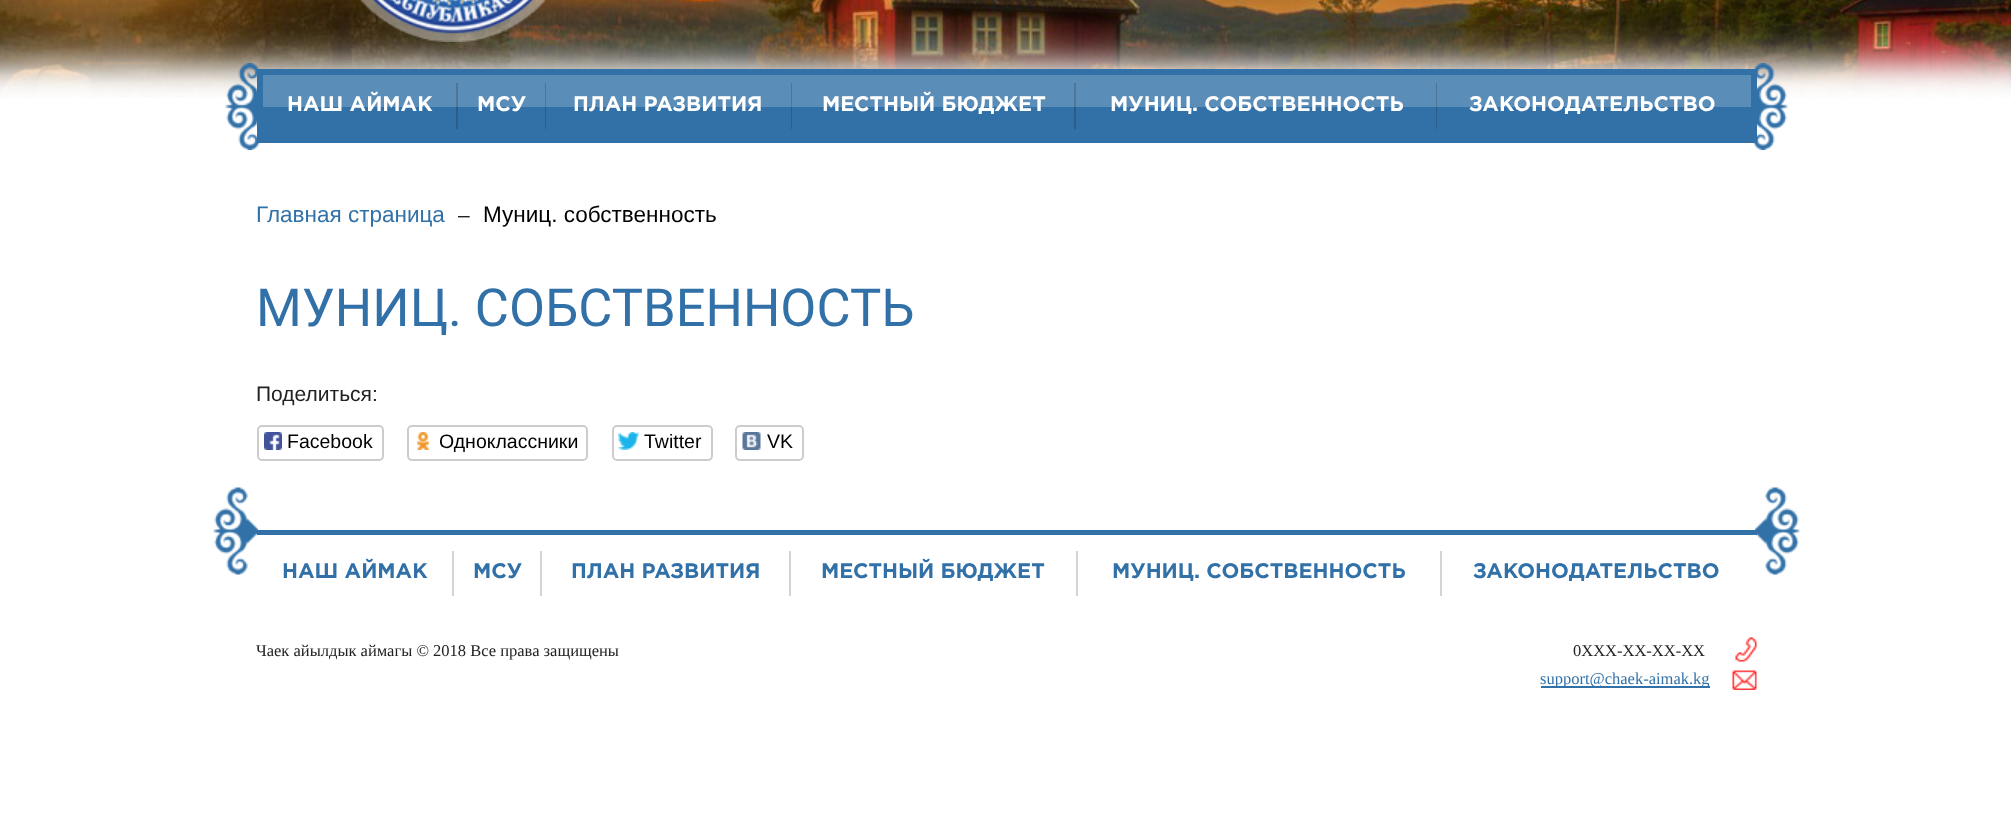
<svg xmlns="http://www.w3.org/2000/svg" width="2011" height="826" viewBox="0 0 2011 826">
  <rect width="100%" height="100%" fill="rgb(255,255,255)"/>
  <image x="0" y="0" width="2011" height="98" href="pic1.png"/>
  <image x="360" y="0" width="186" height="42" href="pic2.png"/>
  <image x="225" y="63" width="35" height="87" href="pic3.png"/>
  <image x="1753" y="63" width="35" height="87" href="pic4.png"/>
  <rect x="260" y="72" width="1494" height="68" fill="none" stroke="rgb(50,113,168)" stroke-width="6"/>
  <rect x="263" y="107" width="1488" height="30" fill="rgb(50,113,168)"/>
  <rect x="263" y="75" width="1488" height="32" fill="rgb(91,141,185)"/>
  <text x="287" y="111" font-family="Gotham" font-size="21" font-weight="bold" fill="rgb(255,255,255)">НАШ АЙМАК</text>
  <rect x="456" y="83" width="2" height="46" fill="rgba(0,0,0,0.17)"/>
  <text x="477" y="111" font-family="Gotham" font-size="21" font-weight="bold" fill="rgb(255,255,255)">МСУ</text>
  <rect x="545" y="83" width="1" height="46" fill="rgba(0,0,0,0.17)"/>
  <text x="573" y="111" font-family="Gotham" font-size="21" font-weight="bold" fill="rgb(255,255,255)">ПЛАН РАЗВИТИЯ</text>
  <rect x="791" y="83" width="1" height="46" fill="rgba(0,0,0,0.17)"/>
  <text x="822" y="111" font-family="Gotham" font-size="21" font-weight="bold" fill="rgb(255,255,255)">МЕСТНЫЙ БЮДЖЕТ</text>
  <rect x="1074" y="83" width="2" height="46" fill="rgba(0,0,0,0.17)"/>
  <text x="1110" y="111" font-family="Gotham" font-size="21" font-weight="bold" fill="rgb(255,255,255)">МУНИЦ. СОБСТВЕННОСТЬ</text>
  <rect x="1436" y="83" width="1" height="46" fill="rgba(0,0,0,0.17)"/>
  <text x="1469" y="111" font-family="Gotham" font-size="21" font-weight="bold" fill="rgb(255,255,255)">ЗАКОНОДАТЕЛЬСТВО</text>
  <text x="256" y="222" font-family="Liberation Sans" font-size="22.5" fill="rgb(50,113,168)">Главная страница</text>
  <text x="458" y="222" font-family="Liberation Sans" font-size="21" fill="rgb(34,34,34)">–</text>
  <text x="483" y="222" font-family="Liberation Sans" font-size="22.5" fill="rgb(0,0,0)">Муниц. собственность</text>
  <text x="256" y="326" font-family="Roboto" font-size="52.5" fill="rgb(50,113,168)">МУНИЦ. СОБСТВЕННОСТЬ</text>
  <text x="256" y="401" font-family="Liberation Sans" font-size="21" fill="rgb(34,34,34)">Поделиться:</text>
  <rect x="258" y="426" width="125" height="34" rx="4" fill="none" stroke="rgb(204,204,204)" stroke-width="2"/>
  <image x="264" y="432" width="18" height="18" href="pic5.png"/>
  <text x="287" y="448" font-family="Liberation Sans" font-size="19.5" fill="rgb(0,0,0)">Facebook</text>
  <rect x="408" y="426" width="179" height="34" rx="4" fill="none" stroke="rgb(204,204,204)" stroke-width="2"/>
  <image x="417" y="432" width="12" height="18" href="pic6.png"/>
  <text x="439" y="448" font-family="Liberation Sans" font-size="19.5" fill="rgb(0,0,0)">Одноклассники</text>
  <rect x="613" y="426" width="99" height="34" rx="4" fill="none" stroke="rgb(204,204,204)" stroke-width="2"/>
  <image x="618" y="432" width="21" height="18" href="pic7.png"/>
  <text x="644" y="448" font-family="Liberation Sans" font-size="19.5" fill="rgb(0,0,0)">Twitter</text>
  <rect x="736" y="426" width="67" height="34" rx="4" fill="none" stroke="rgb(204,204,204)" stroke-width="2"/>
  <image x="742" y="432" width="19" height="18" href="pic8.png"/>
  <text x="767" y="448" font-family="Liberation Sans" font-size="19.5" fill="rgb(0,0,0)">VK</text>
  <image x="213" y="487" width="45" height="88" href="pic9.png"/>
  <image x="1755" y="487" width="45" height="88" href="pic10.png"/>
  <rect x="257" y="530" width="1500" height="5" fill="rgb(50,113,168)"/>
  <text x="282" y="578" font-family="Gotham" font-size="21" font-weight="bold" fill="rgb(50,113,168)">НАШ АЙМАК</text>
  <rect x="452" y="551" width="2" height="45" fill="rgb(212,212,212)"/>
  <text x="473" y="578" font-family="Gotham" font-size="21" font-weight="bold" fill="rgb(50,113,168)">МСУ</text>
  <rect x="540" y="551" width="2" height="45" fill="rgb(212,212,212)"/>
  <text x="571" y="578" font-family="Gotham" font-size="21" font-weight="bold" fill="rgb(50,113,168)">ПЛАН РАЗВИТИЯ</text>
  <rect x="789" y="551" width="2" height="45" fill="rgb(212,212,212)"/>
  <text x="821" y="578" font-family="Gotham" font-size="21" font-weight="bold" fill="rgb(50,113,168)">МЕСТНЫЙ БЮДЖЕТ</text>
  <rect x="1076" y="551" width="2" height="45" fill="rgb(212,212,212)"/>
  <text x="1112" y="578" font-family="Gotham" font-size="21" font-weight="bold" fill="rgb(50,113,168)">МУНИЦ. СОБСТВЕННОСТЬ</text>
  <rect x="1440" y="551" width="2" height="45" fill="rgb(212,212,212)"/>
  <text x="1473" y="578" font-family="Gotham" font-size="21" font-weight="bold" fill="rgb(50,113,168)">ЗАКОНОДАТЕЛЬСТВО</text>
  <g font-family="Liberation Serif" font-size="16.5" fill="rgb(34,34,34)">
    <text x="256" y="656">Чаек айылдык аймагы © 2018 Все права защищены</text>
    <text x="1573" y="656">0ХХХ-ХХ-ХХ-ХХ</text>
  </g>
  <image x="1735" y="637" width="22" height="25" href="pic11.png"/>
  <rect x="1541" y="686" width="169" height="2" fill="rgb(50,113,168)"/>
  <text x="1540" y="684" font-family="Liberation Serif" font-size="16.5" fill="rgb(50,113,168)">support@chaek-aimak.kg</text>
  <image x="1732" y="670" width="25" height="20" href="pic12.png"/>
</svg>
